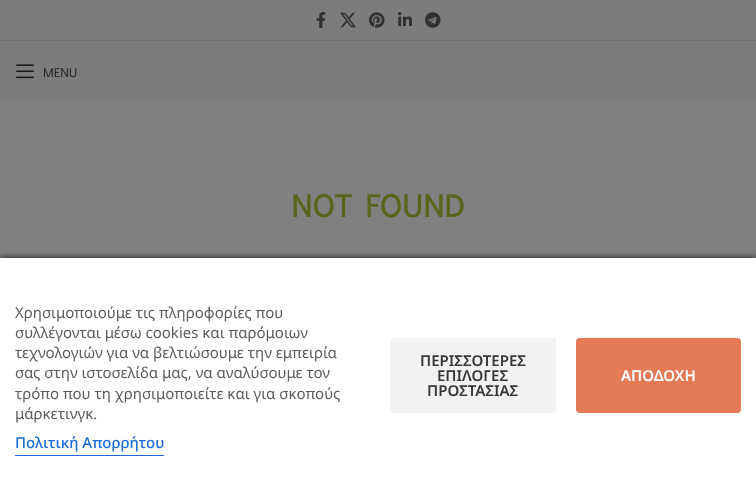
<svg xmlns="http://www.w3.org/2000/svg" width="756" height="494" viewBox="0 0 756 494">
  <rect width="100%" height="100%" fill="rgb(128,128,128)"/>
  <rect x="0" y="0" width="756" height="40" fill="rgb(124,124,124)"/>
  <rect x="0" y="40" width="756" height="1" fill="rgb(112,112,111)"/>
  <image x="316" y="12" width="10" height="16" href="pic1.png"/>
  <image x="340" y="12" width="16" height="16" href="pic2.png"/>
  <image x="369" y="12" width="16" height="16" href="pic3.png"/>
  <image x="398" y="12" width="14" height="14" href="pic4.png"/>
  <image x="425" y="12" width="16" height="16" href="pic5.png"/>
  <rect x="0" y="41" width="756" height="60" fill="rgb(124,124,124)"/>
  <image x="16" y="64" width="18" height="15" href="pic6.png"/>
  <text x="43" y="77" font-family="Didact Gothic" font-size="13" fill="rgb(26,26,26)">MENU</text>
  <text x="291" y="217" font-family="Didact Gothic" font-size="32" font-weight="bold" fill="rgb(88,101,27)">NOT FOUND</text>
  <rect x="0" y="256" width="756" height="236" fill="rgba(0,0,0,0.5)" filter="blur(2.5px)"/>
  <rect x="0" y="258" width="756" height="236" fill="rgb(255,255,255)"/>
  <g font-family="Noto Sans" font-size="15" fill="rgb(93,93,93)">
    <text>
      <tspan x="15" y="318">Χρησιμοποιούμε τις πληροφορίες που</tspan>
      <tspan x="15" y="338">συλλέγονται μέσω cookies και παρόμοιων</tspan>
      <tspan x="15" y="358">τεχνολογιών για να βελτιώσουμε την εμπειρία</tspan>
      <tspan x="15" y="378">σας στην ιστοσελίδα μας, να αναλύσουμε τον</tspan>
      <tspan x="15" y="399">τρόπο που τη χρησιμοποιείτε και για σκοπούς</tspan>
      <tspan x="15" y="419">μάρκετινγκ.</tspan>
    </text>
  </g>
  <text x="15" y="448" font-family="Noto Sans" font-size="15" font-weight="500" fill="rgb(26,107,215)">Πολιτική Απορρήτου</text>
  <rect x="15" y="455" width="149" height="1" fill="rgb(26,107,215)"/>
  <rect x="390" y="338" width="166" height="75" rx="4" fill="rgb(242,242,242)"/>
  <g font-family="Noto Sans" font-size="15" font-weight="600" fill="rgb(55,55,55)">
    <text x="420" y="366">ΠΕΡΙΣΣΟΤΕΡΕΣ</text>
    <text x="437" y="381">ΕΠΙΛΟΓΕΣ</text>
    <text x="427" y="396">ΠΡΟΣΤΑΣΙΑΣ</text>
  </g>
  <rect x="576" y="338" width="165" height="75" rx="4" fill="rgb(228,122,86)"/>
  <text x="621" y="381" font-family="Noto Sans" font-size="15" font-weight="600" fill="rgb(255,255,255)">ΑΠΟΔΟΧΗ</text>
</svg>
